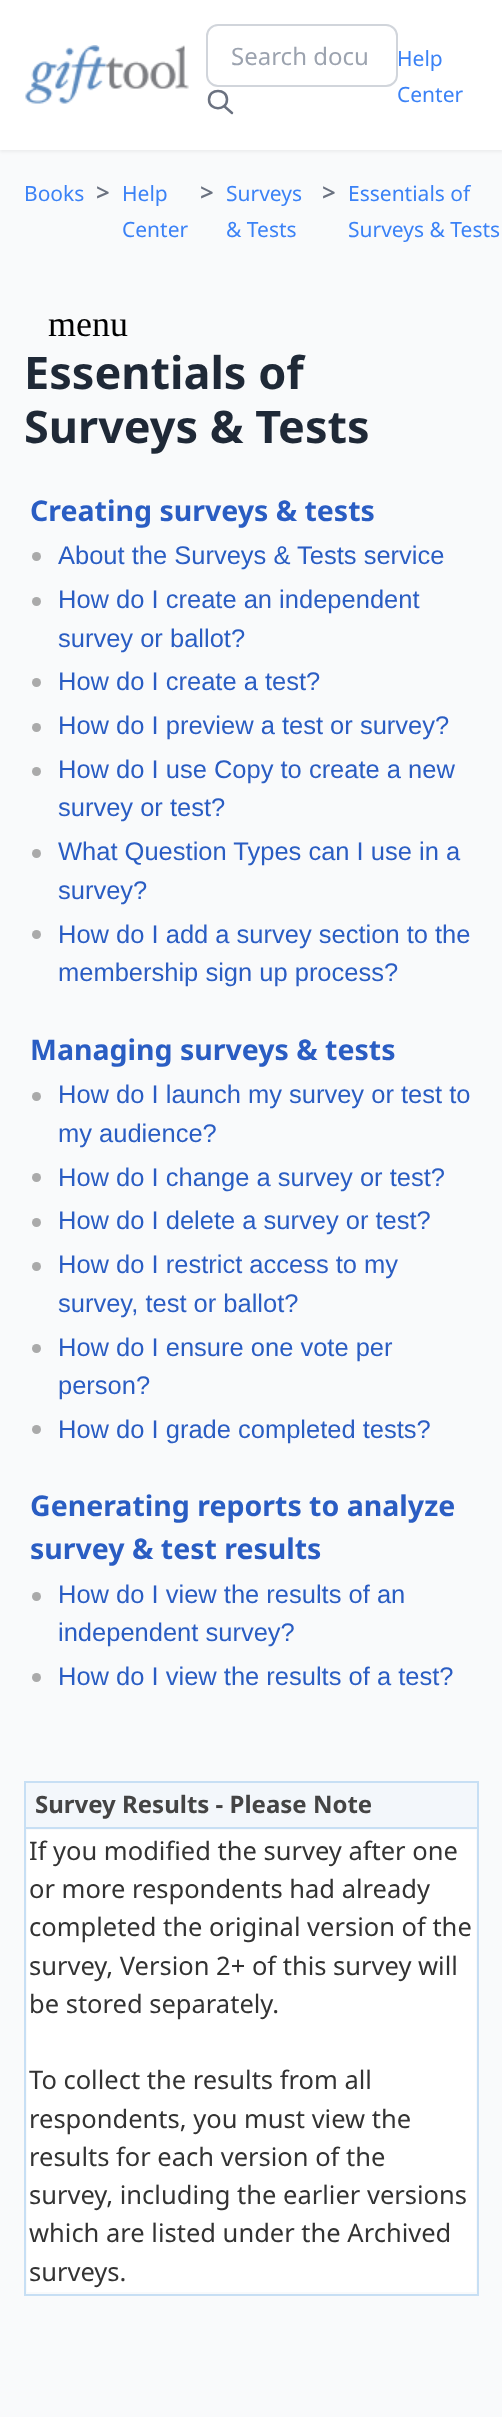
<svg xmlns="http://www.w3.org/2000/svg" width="502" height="2417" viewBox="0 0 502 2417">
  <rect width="100%" height="100%" fill="rgb(249,250,251)"/>
  <rect x="0" y="2" width="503" height="150" fill="rgba(0,0,0,0.05)" filter="blur(1.5px)"/>
  <rect x="0" y="0" width="502" height="150" fill="rgb(255,255,255)"/>
  <image x="25" y="45" width="164" height="59" href="pic1.png"/>
  <rect x="207" y="25" width="190" height="61" rx="11" fill="none" stroke="rgb(209,213,219)" stroke-width="2"/>
  <text x="231" y="65" font-family="Noto Sans" font-size="24" fill="rgb(156,163,175)">Search docu</text>
  <path d="M232 113L224 106M227 99.5C227 111 209 111 209 99.5C209 88 227 88 227 99.5Z" fill="none" stroke="rgb(107,114,128)" stroke-width="2.5" stroke-linecap="round" stroke-linejoin="round"/>
  <g font-family="Noto Sans" font-size="21" fill="rgb(59,130,246)">
    <text>
      <tspan x="397" y="66">Help</tspan>
      <tspan x="397" y="102">Center</tspan>
    </text>
    <text x="24" y="201">Books</text>
  </g>
  <text x="96" y="201" font-family="Noto Sans" font-size="24" font-weight="600" fill="rgb(107,114,128)">&gt;</text>
  <g font-family="Noto Sans" font-size="21" fill="rgb(59,130,246)">
    <text>
      <tspan x="122" y="201">Help</tspan>
      <tspan x="122" y="237">Center</tspan>
    </text>
  </g>
  <text x="200" y="201" font-family="Noto Sans" font-size="24" font-weight="600" fill="rgb(107,114,128)">&gt;</text>
  <g font-family="Noto Sans" font-size="21" fill="rgb(59,130,246)">
    <text>
      <tspan x="226" y="201">Surveys</tspan>
      <tspan x="226" y="237">&amp; Tests</tspan>
    </text>
  </g>
  <text x="322" y="201" font-family="Noto Sans" font-size="24" font-weight="600" fill="rgb(107,114,128)">&gt;</text>
  <g font-family="Noto Sans" font-size="21" fill="rgb(59,130,246)">
    <text>
      <tspan x="348" y="201">Essentials of</tspan>
      <tspan x="348" y="237">Surveys &amp; Tests</tspan>
    </text>
  </g>
  <text x="48" y="336" font-family="Liberation Serif" font-size="36" fill="rgb(0,0,0)">menu</text>
  <g font-family="Noto Sans" font-size="45" font-weight="bold" fill="rgb(31,41,55)">
    <text>
      <tspan x="24" y="389">Essentials of</tspan>
      <tspan x="24" y="443">Surveys &amp; Tests</tspan>
    </text>
  </g>
  <text x="30" y="521" font-family="Noto Sans" font-size="28.5" font-weight="bold" fill="rgb(42,93,195)">Creating surveys &amp; tests</text>
  <circle cx="36.5" cy="556.5" r="4.5" fill="rgb(170,170,170)"/>
  <text x="58" y="564" font-family="Liberation Sans" font-size="25.5" fill="rgb(42,93,195)">About the Surveys &amp; Tests service</text>
  <circle cx="36.5" cy="601.5" r="4.5" fill="rgb(170,170,170)"/>
  <g font-family="Liberation Sans" font-size="25.5" fill="rgb(42,93,195)">
    <text>
      <tspan x="58" y="608">How do I create an independent</tspan>
      <tspan x="58" y="647">survey or ballot?</tspan>
    </text>
  </g>
  <circle cx="36.5" cy="682.5" r="4.5" fill="rgb(170,170,170)"/>
  <text x="58" y="690" font-family="Liberation Sans" font-size="25.5" fill="rgb(42,93,195)">How do I create a test?</text>
  <circle cx="36.5" cy="727.5" r="4.5" fill="rgb(170,170,170)"/>
  <text x="58" y="734" font-family="Liberation Sans" font-size="25.5" fill="rgb(42,93,195)">How do I preview a test or survey?</text>
  <circle cx="36.5" cy="771.5" r="4.5" fill="rgb(170,170,170)"/>
  <g font-family="Liberation Sans" font-size="25.5" fill="rgb(42,93,195)">
    <text>
      <tspan x="58" y="778">How do I use Copy to create a new</tspan>
      <tspan x="58" y="816">survey or test?</tspan>
    </text>
  </g>
  <circle cx="36.5" cy="853.5" r="4.5" fill="rgb(170,170,170)"/>
  <g font-family="Liberation Sans" font-size="25.5" fill="rgb(42,93,195)">
    <text>
      <tspan x="58" y="860">What Question Types can I use in a</tspan>
      <tspan x="58" y="899">survey?</tspan>
    </text>
  </g>
  <circle cx="36.5" cy="934.5" r="4.5" fill="rgb(170,170,170)"/>
  <g font-family="Liberation Sans" font-size="25.5" fill="rgb(42,93,195)">
    <text>
      <tspan x="58" y="943">How do I add a survey section to the</tspan>
      <tspan x="58" y="981">membership sign up process?</tspan>
    </text>
  </g>
  <text x="30" y="1060" font-family="Noto Sans" font-size="28.5" font-weight="bold" fill="rgb(42,93,195)">Managing surveys &amp; tests</text>
  <circle cx="36.5" cy="1096.5" r="4.5" fill="rgb(170,170,170)"/>
  <g font-family="Liberation Sans" font-size="25.5" fill="rgb(42,93,195)">
    <text>
      <tspan x="58" y="1103">How do I launch my survey or test to</tspan>
      <tspan x="58" y="1142">my audience?</tspan>
    </text>
  </g>
  <circle cx="36.5" cy="1177.5" r="4.5" fill="rgb(170,170,170)"/>
  <text x="58" y="1186" font-family="Liberation Sans" font-size="25.5" fill="rgb(42,93,195)">How do I change a survey or test?</text>
  <circle cx="36.5" cy="1222.5" r="4.5" fill="rgb(170,170,170)"/>
  <text x="58" y="1229" font-family="Liberation Sans" font-size="25.5" fill="rgb(42,93,195)">How do I delete a survey or test?</text>
  <circle cx="36.5" cy="1266.5" r="4.5" fill="rgb(170,170,170)"/>
  <g font-family="Liberation Sans" font-size="25.5" fill="rgb(42,93,195)">
    <text>
      <tspan x="58" y="1273">How do I restrict access to my</tspan>
      <tspan x="58" y="1312">survey, test or ballot?</tspan>
    </text>
  </g>
  <circle cx="36.5" cy="1348.5" r="4.5" fill="rgb(170,170,170)"/>
  <g font-family="Liberation Sans" font-size="25.5" fill="rgb(42,93,195)">
    <text>
      <tspan x="58" y="1356">How do I ensure one vote per</tspan>
      <tspan x="58" y="1394">person?</tspan>
    </text>
  </g>
  <circle cx="36.5" cy="1429.5" r="4.5" fill="rgb(170,170,170)"/>
  <text x="58" y="1438" font-family="Liberation Sans" font-size="25.5" fill="rgb(42,93,195)">How do I grade completed tests?</text>
  <g font-family="Noto Sans" font-size="28.5" font-weight="bold" fill="rgb(42,93,195)">
    <text>
      <tspan x="30" y="1516">Generating reports to analyze</tspan>
      <tspan x="30" y="1559">survey &amp; test results</tspan>
    </text>
  </g>
  <circle cx="36.5" cy="1596.5" r="4.5" fill="rgb(170,170,170)"/>
  <g font-family="Liberation Sans" font-size="25.5" fill="rgb(42,93,195)">
    <text>
      <tspan x="58" y="1603">How do I view the results of an</tspan>
      <tspan x="58" y="1641">independent survey?</tspan>
    </text>
  </g>
  <circle cx="36.5" cy="1677.5" r="4.5" fill="rgb(170,170,170)"/>
  <text x="58" y="1685" font-family="Liberation Sans" font-size="25.5" fill="rgb(42,93,195)">How do I view the results of a test?</text>
  <rect x="26" y="1783" width="451" height="44" fill="rgb(243,247,251)"/>
  <rect x="24" y="1781" width="455" height="2" fill="rgb(199,223,244)"/>
  <rect x="477" y="1827" width="2" height="468" fill="rgb(199,223,244)"/>
  <rect x="477" y="1781" width="2" height="48" fill="rgb(199,223,244)"/>
  <rect x="24" y="2294" width="455" height="2" fill="rgb(199,223,244)"/>
  <rect x="24" y="1827" width="2" height="468" fill="rgb(199,223,244)"/>
  <rect x="24" y="1827" width="455" height="2" fill="rgb(199,223,244)"/>
  <rect x="24" y="1781" width="2" height="48" fill="rgb(199,223,244)"/>
  <text x="35" y="1813" font-family="Noto Sans" font-size="24" font-weight="bold" fill="rgb(68,68,68)">Survey Results - Please Note</text>
  <rect x="27" y="1830" width="449" height="462" fill="rgb(255,255,255)"/>
  <g font-family="Noto Sans" font-size="25.5" fill="rgb(51,51,51)">
    <text>
      <tspan x="29" y="1860">If you modified the survey after one</tspan>
      <tspan x="29" y="1898">or more respondents had already</tspan>
      <tspan x="29" y="1936">completed the original version of the</tspan>
      <tspan x="29" y="1975">survey, Version 2+ of this survey will</tspan>
      <tspan x="29" y="2013">be stored separately.</tspan>
    </text>
    <text>
      <tspan x="29" y="2089">To collect the results from all</tspan>
      <tspan x="29" y="2128">respondents, you must view the</tspan>
      <tspan x="29" y="2166">results for each version of the</tspan>
      <tspan x="29" y="2204">survey, including the earlier versions</tspan>
      <tspan x="29" y="2242">which are listed under the Archived</tspan>
      <tspan x="29" y="2281">surveys.</tspan>
    </text>
  </g>
</svg>
